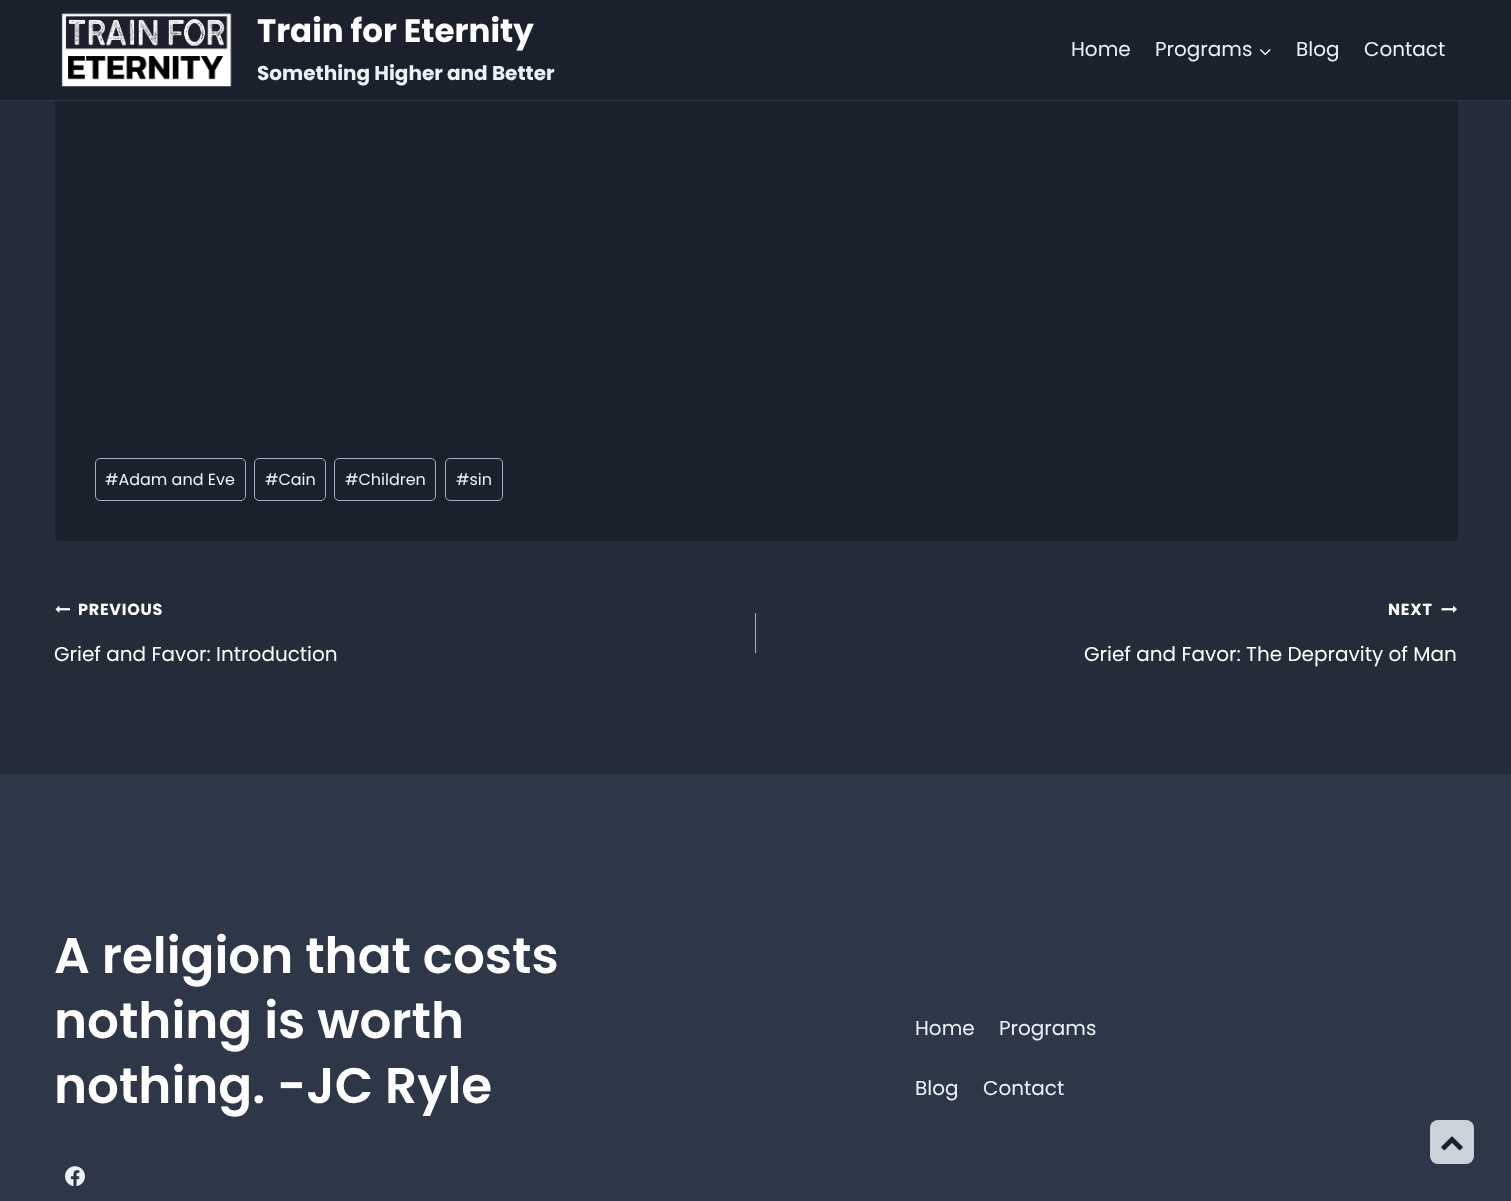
<svg xmlns="http://www.w3.org/2000/svg" width="1511" height="1201" viewBox="0 0 1511 1201">
  <rect width="100%" height="100%" fill="rgb(37,44,57)"/>
  <rect x="55" y="-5" width="1403" height="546" rx="5" fill="rgb(26,32,44)"/>
  <rect x="0" y="0" width="1511" height="100" fill="rgb(26,32,44)"/>
  <rect x="0" y="100" width="1511" height="1" fill="rgb(45,55,72)"/>
  <image x="61" y="13" width="171" height="74" href="pic1.png"/>
  <text x="257" y="42" font-family="Poppins" font-size="32.5" font-weight="bold" fill="rgb(255,255,255)">Train for Eternity</text>
  <text x="257" y="80" font-family="Poppins" font-size="20" font-weight="bold" fill="rgb(237,242,247)">Something Higher and Better</text>
  <g font-family="Poppins" font-size="20" fill="rgb(237,242,247)">
    <text x="1071" y="56">Home</text>
    <text x="1155" y="56">Programs</text>
  </g>
  <image x="1260" y="49" width="11" height="7" href="pic2.png"/>
  <g font-family="Poppins" font-size="20" fill="rgb(237,242,247)">
    <text x="1296" y="56">Blog</text>
    <text x="1364" y="56">Contact</text>
  </g>
  <rect x="95.5" y="458.5" width="150" height="42" rx="4.5" fill="none" stroke="rgb(160,174,192)"/>
  <text x="105" y="485" font-family="Poppins" font-size="16" fill="rgb(237,242,247)">#Adam and Eve</text>
  <rect x="254.5" y="458.5" width="71" height="42" rx="4.5" fill="none" stroke="rgb(160,174,192)"/>
  <text x="265" y="485" font-family="Poppins" font-size="16" fill="rgb(237,242,247)">#Cain</text>
  <rect x="334.5" y="458.5" width="101" height="42" rx="4.5" fill="none" stroke="rgb(160,174,192)"/>
  <text x="345" y="485" font-family="Poppins" font-size="16" fill="rgb(237,242,247)">#Children</text>
  <rect x="445.5" y="458.5" width="57" height="42" rx="4.5" fill="none" stroke="rgb(160,174,192)"/>
  <text x="456" y="485" font-family="Poppins" font-size="16" fill="rgb(237,242,247)">#sin</text>
  <image x="55" y="606" width="15" height="7" href="pic3.png"/>
  <text x="78" y="615" font-family="Poppins" font-size="16" font-weight="bold" letter-spacing="0.75" fill="rgb(255,255,255)">PREVIOUS</text>
  <text x="54" y="661" font-family="Poppins" font-size="20" fill="rgb(255,255,255)">Grief and Favor: Introduction</text>
  <rect x="755" y="613" width="1" height="40" fill="rgb(160,174,192)"/>
  <text x="1388" y="615" font-family="Poppins" font-size="16" font-weight="bold" letter-spacing="0.75" fill="rgb(255,255,255)">NEXT</text>
  <image x="1441" y="605" width="16" height="8" href="pic4.png"/>
  <text x="1084" y="661" font-family="Poppins" font-size="20" fill="rgb(255,255,255)">Grief and Favor: The Depravity of Man</text>
  <rect x="0" y="774" width="1511" height="427" fill="rgb(45,55,72)"/>
  <g font-family="Poppins" font-size="50" font-weight="600" fill="rgb(255,255,255)">
    <text>
      <tspan x="54" y="973">A religion that costs</tspan>
      <tspan x="54" y="1038">nothing is worth</tspan>
      <tspan x="54" y="1103">nothing. -JC Ryle</tspan>
    </text>
  </g>
  <image x="65" y="1166" width="20" height="20" href="pic5.png"/>
  <g font-family="Poppins" font-size="20" fill="rgb(237,242,247)">
    <text x="915" y="1035">Home</text>
    <text x="999" y="1035">Programs</text>
    <text x="915" y="1095">Blog</text>
    <text x="983" y="1095">Contact</text>
  </g>
  <rect x="1430" y="1120" width="44" height="44" rx="8" fill="rgb(203,210,217)"/>
  <image x="1441" y="1136" width="22" height="15" href="pic6.png"/>
</svg>
